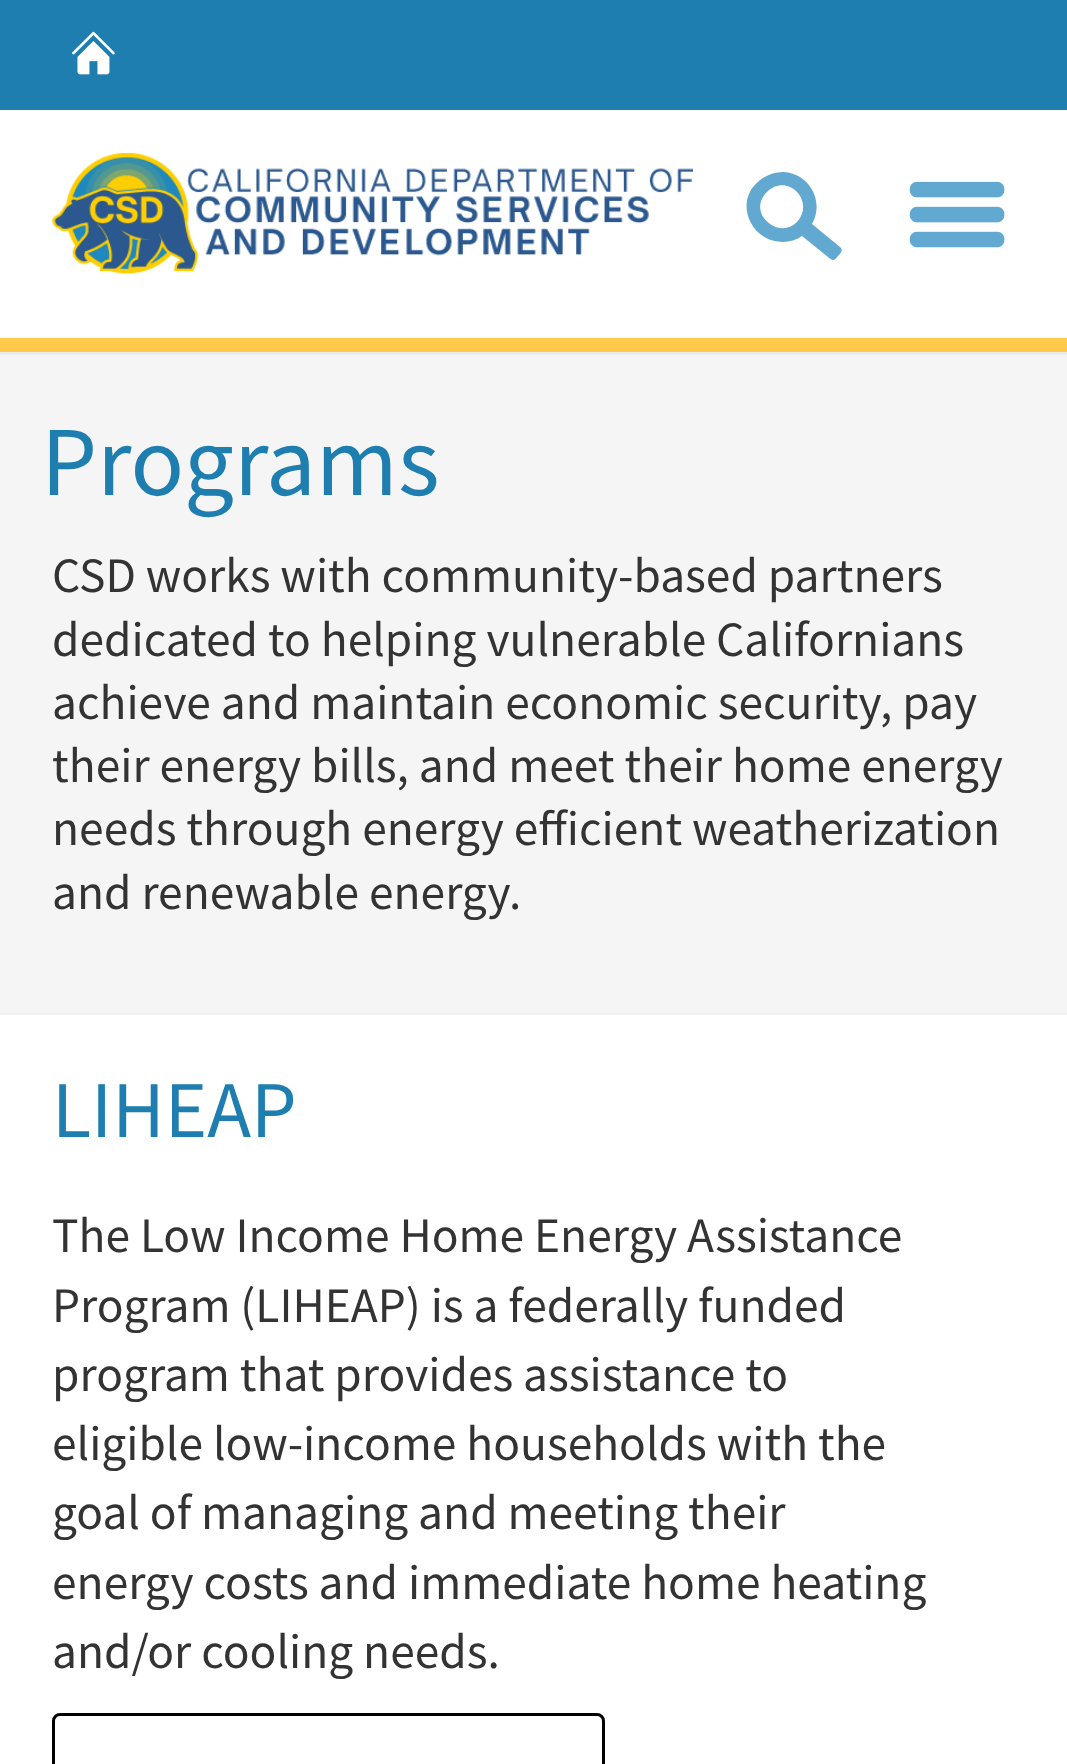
<svg xmlns="http://www.w3.org/2000/svg" width="1067" height="1764" viewBox="0 0 1067 1764">
  <rect width="100%" height="100%" fill="rgb(255,255,255)"/>
  <rect x="0" y="0" width="1067" height="110" fill="rgb(29,126,175)"/>
  <image x="72" y="31" width="43" height="44" href="pic1.png"/>
  <image x="52" y="152" width="641" height="122" href="pic2.png"/>
  <path d="M840 247L812 224C825 201 809 173 783 172C776 172 769 174 763 178C757 182 752 187 749 194C745 203 746 214 751 223C760 241 785 248 802 236L828 257C833 261 834 261 838 256C840 254 844 250 840 247ZM797 222C778 241 746 212 767 192C787 172 816 201 797 222Z" fill="rgb(98,169,209)"/>
  <image x="909" y="181" width="96" height="67" href="pic3.png"/>
  <rect x="0" y="338" width="1067" height="14" fill="rgb(255,202,74)"/>
  <rect x="0" y="355" width="1067" height="657" fill="rgb(245,245,245)"/>
  <rect x="0" y="352" width="1067" height="3" fill="rgb(233,233,233)"/>
  <text x="41" y="495" font-family="Source Sans Pro" font-size="99" fill="rgb(29,126,175)">Programs</text>
  <g font-family="Source Sans Pro" font-size="49.5" fill="rgb(51,51,51)">
    <text>
      <tspan x="52" y="592">CSD works with community-based partners</tspan>
      <tspan x="52" y="656">dedicated to helping vulnerable Californians</tspan>
      <tspan x="52" y="719">achieve and maintain economic security, pay</tspan>
      <tspan x="52" y="782">their energy bills, and meet their home energy</tspan>
      <tspan x="52" y="845">needs through energy efficient weatherization</tspan>
      <tspan x="52" y="909">and renewable energy.</tspan>
    </text>
  </g>
  <rect x="0" y="1012" width="1067" height="3" fill="rgb(242,242,242)"/>
  <text x="52" y="1137" font-family="Source Sans Pro" font-size="80.5" fill="rgb(29,126,175)">LIHEAP</text>
  <g font-family="Source Sans Pro" font-size="49.5" fill="rgb(51,51,51)">
    <text>
      <tspan x="52" y="1252">The Low Income Home Energy Assistance</tspan>
      <tspan x="52" y="1322">Program (LIHEAP) is a federally funded</tspan>
      <tspan x="52" y="1391">program that provides assistance to</tspan>
      <tspan x="52" y="1460">eligible low-income households with the</tspan>
      <tspan x="52" y="1529">goal of managing and meeting their</tspan>
      <tspan x="52" y="1599">energy costs and immediate home heating</tspan>
      <tspan x="52" y="1668">and/or cooling needs.</tspan>
    </text>
  </g>
  <rect x="53.5" y="1714.5" width="550" height="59" rx="6.5" fill="none" stroke="rgb(0,0,0)" stroke-width="3"/>
</svg>
